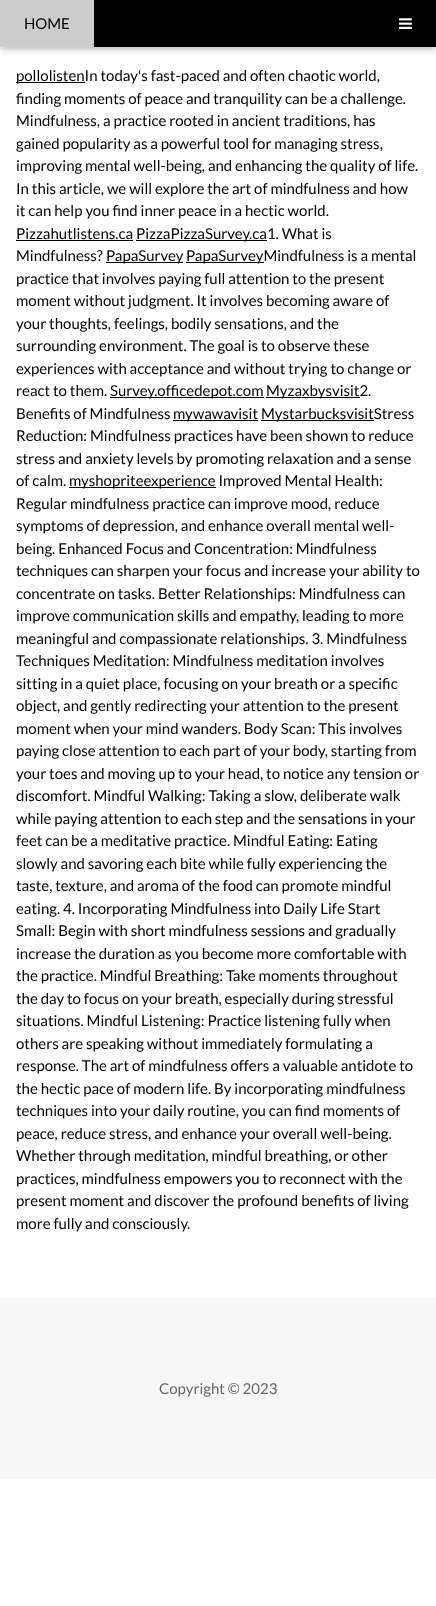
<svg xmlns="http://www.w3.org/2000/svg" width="436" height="1606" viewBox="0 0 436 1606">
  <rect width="100%" height="100%" fill="rgb(255,255,255)"/>
  <rect x="0" y="2" width="436" height="47" fill="rgba(0,0,0,0.12)" filter="blur(5px)"/>
  <rect x="0" y="2" width="436" height="47" fill="rgba(0,0,0,0.16)" filter="blur(2.5px)"/>
  <rect x="94" y="0" width="342" height="47" fill="rgb(0,0,0)"/>
  <rect x="0" y="0" width="94" height="47" fill="rgb(204,204,204)"/>
  <text x="24" y="29" font-family="Lato" font-size="15" fill="rgb(0,0,0)">HOME</text>
  <image x="399" y="18" width="13" height="11" href="pic1.png"/>
  <rect x="16" y="82" width="69" height="1" fill="rgb(0,0,0)"/>
  <g font-family="Lato" font-size="15" fill="rgb(0,0,0)">
    <text>
      <tspan x="16" y="81">pollolistenIn today's fast-paced and often chaotic world,</tspan>
      <tspan x="16" y="104">finding moments of peace and tranquility can be a challenge.</tspan>
      <tspan x="16" y="126">Mindfulness, a practice rooted in ancient traditions, has</tspan>
      <tspan x="16" y="149">gained popularity as a powerful tool for managing stress,</tspan>
      <tspan x="16" y="171">improving mental well-being, and enhancing the quality of life.</tspan>
      <tspan x="16" y="194">In this article, we will explore the art of mindfulness and how</tspan>
      <tspan x="16" y="216">it can help you find inner peace in a hectic world.</tspan>
      <tspan x="16" y="239">Pizzahutlistens.ca</tspan>
    </text>
  </g>
  <rect x="16" y="240" width="117" height="1" fill="rgb(0,0,0)"/>
  <rect x="136" y="240" width="131" height="1" fill="rgb(0,0,0)"/>
  <g font-family="Lato" font-size="15" fill="rgb(0,0,0)">
    <text x="136" y="239">PizzaPizzaSurvey.ca1. What is</text>
    <text x="16" y="261">Mindfulness?</text>
  </g>
  <rect x="106" y="262" width="77" height="1" fill="rgb(0,0,0)"/>
  <text x="106" y="261" font-family="Lato" font-size="15" fill="rgb(0,0,0)">PapaSurvey</text>
  <rect x="186" y="262" width="78" height="1" fill="rgb(0,0,0)"/>
  <g font-family="Lato" font-size="15" fill="rgb(0,0,0)">
    <text x="186" y="261">PapaSurveyMindfulness is a mental</text>
    <text>
      <tspan x="16" y="284">practice that involves paying full attention to the present</tspan>
      <tspan x="16" y="306">moment without judgment. It involves becoming aware of</tspan>
      <tspan x="16" y="329">your thoughts, feelings, bodily sensations, and the</tspan>
      <tspan x="16" y="351">surrounding environment. The goal is to observe these</tspan>
      <tspan x="16" y="374">experiences with acceptance and without trying to change or</tspan>
      <tspan x="16" y="396">react to them.</tspan>
    </text>
  </g>
  <rect x="110" y="397" width="154" height="1" fill="rgb(0,0,0)"/>
  <text x="110" y="396" font-family="Lato" font-size="15" fill="rgb(0,0,0)">Survey.officedepot.com</text>
  <rect x="266" y="397" width="94" height="1" fill="rgb(0,0,0)"/>
  <g font-family="Lato" font-size="15" fill="rgb(0,0,0)">
    <text x="266" y="396">Myzaxbysvisit2.</text>
    <text x="16" y="419">Benefits of Mindfulness</text>
  </g>
  <rect x="173" y="420" width="85" height="1" fill="rgb(0,0,0)"/>
  <text x="173" y="419" font-family="Lato" font-size="15" fill="rgb(0,0,0)">mywawavisit</text>
  <rect x="261" y="420" width="113" height="1" fill="rgb(0,0,0)"/>
  <g font-family="Lato" font-size="15" fill="rgb(0,0,0)">
    <text x="261" y="419">MystarbucksvisitStress</text>
    <text>
      <tspan x="16" y="441">Reduction: Mindfulness practices have been shown to reduce</tspan>
      <tspan x="16" y="464">stress and anxiety levels by promoting relaxation and a sense</tspan>
      <tspan x="16" y="486">of calm.</tspan>
    </text>
  </g>
  <rect x="69" y="487" width="147" height="1" fill="rgb(0,0,0)"/>
  <g font-family="Lato" font-size="15" fill="rgb(0,0,0)">
    <text x="69" y="486">myshopriteexperience Improved Mental Health:</text>
    <text>
      <tspan x="16" y="509">Regular mindfulness practice can improve mood, reduce</tspan>
      <tspan x="16" y="531">symptoms of depression, and enhance overall mental well-</tspan>
      <tspan x="16" y="554">being. Enhanced Focus and Concentration: Mindfulness</tspan>
      <tspan x="16" y="576">techniques can sharpen your focus and increase your ability to</tspan>
      <tspan x="16" y="599">concentrate on tasks. Better Relationships: Mindfulness can</tspan>
      <tspan x="16" y="621">improve communication skills and empathy, leading to more</tspan>
      <tspan x="16" y="644">meaningful and compassionate relationships. 3. Mindfulness</tspan>
      <tspan x="16" y="666">Techniques Meditation: Mindfulness meditation involves</tspan>
      <tspan x="16" y="689">sitting in a quiet place, focusing on your breath or a specific</tspan>
      <tspan x="16" y="711">object, and gently redirecting your attention to the present</tspan>
      <tspan x="16" y="734">moment when your mind wanders. Body Scan: This involves</tspan>
      <tspan x="16" y="756">paying close attention to each part of your body, starting from</tspan>
      <tspan x="16" y="779">your toes and moving up to your head, to notice any tension or</tspan>
      <tspan x="16" y="801">discomfort. Mindful Walking: Taking a slow, deliberate walk</tspan>
      <tspan x="16" y="824">while paying attention to each step and the sensations in your</tspan>
      <tspan x="16" y="846">feet can be a meditative practice. Mindful Eating: Eating</tspan>
      <tspan x="16" y="869">slowly and savoring each bite while fully experiencing the</tspan>
      <tspan x="16" y="891">taste, texture, and aroma of the food can promote mindful</tspan>
      <tspan x="16" y="914">eating. 4. Incorporating Mindfulness into Daily Life Start</tspan>
      <tspan x="16" y="936">Small: Begin with short mindfulness sessions and gradually</tspan>
      <tspan x="16" y="959">increase the duration as you become more comfortable with</tspan>
      <tspan x="16" y="981">the practice. Mindful Breathing: Take moments throughout</tspan>
      <tspan x="16" y="1004">the day to focus on your breath, especially during stressful</tspan>
      <tspan x="16" y="1026">situations. Mindful Listening: Practice listening fully when</tspan>
      <tspan x="16" y="1049">others are speaking without immediately formulating a</tspan>
      <tspan x="16" y="1071">response. The art of mindfulness offers a valuable antidote to</tspan>
      <tspan x="16" y="1094">the hectic pace of modern life. By incorporating mindfulness</tspan>
      <tspan x="16" y="1116">techniques into your daily routine, you can find moments of</tspan>
      <tspan x="16" y="1139">peace, reduce stress, and enhance your overall well-being.</tspan>
      <tspan x="16" y="1161">Whether through meditation, mindful breathing, or other</tspan>
      <tspan x="16" y="1184">practices, mindfulness empowers you to reconnect with the</tspan>
      <tspan x="16" y="1206">present moment and discover the profound benefits of living</tspan>
      <tspan x="16" y="1229">more fully and consciously.</tspan>
    </text>
  </g>
  <rect x="0" y="1298" width="436" height="181" fill="rgb(247,247,247)"/>
  <text x="159" y="1394" font-family="Lato" font-size="15" fill="rgb(102,102,102)">Copyright © 2023</text>
</svg>
